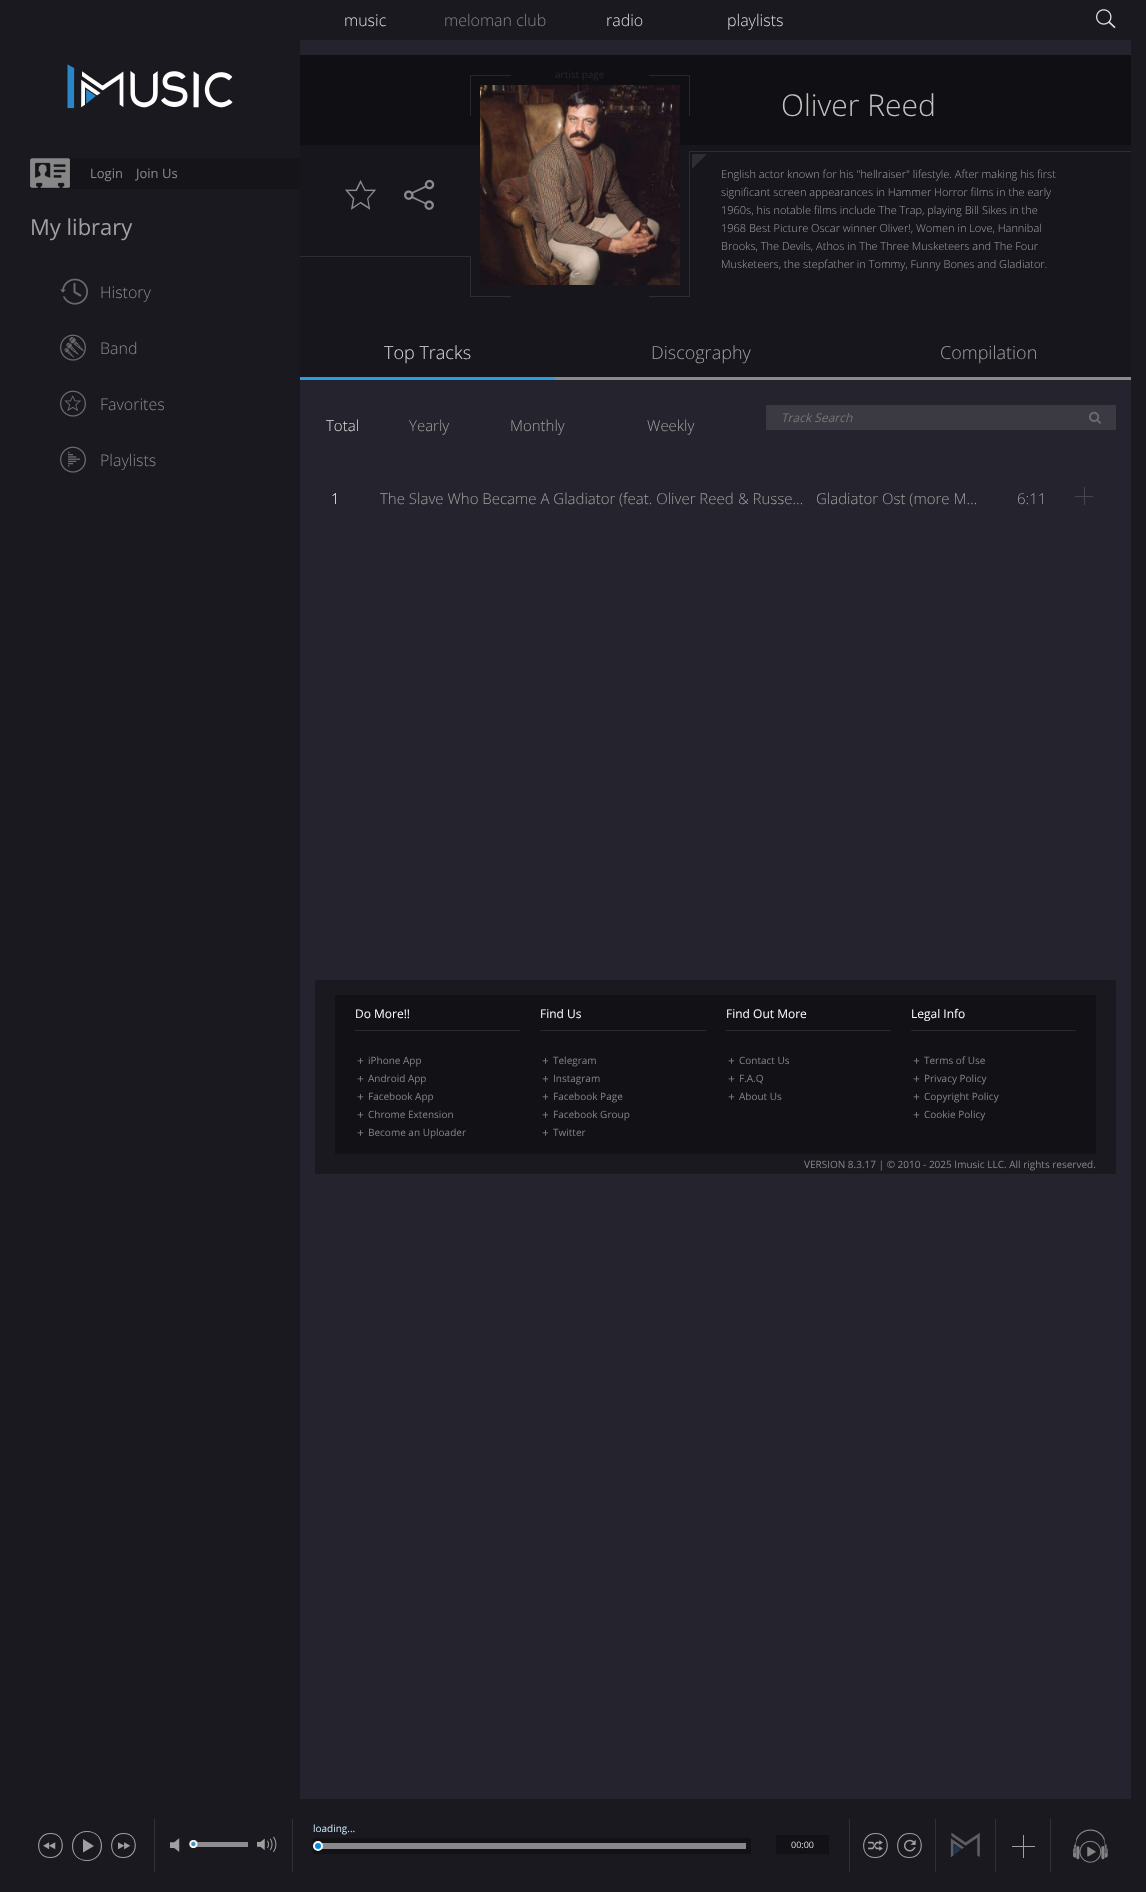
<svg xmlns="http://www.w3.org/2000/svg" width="1146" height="1892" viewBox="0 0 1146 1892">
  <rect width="100%" height="100%" fill="rgb(37,35,45)"/>
  <rect x="0" y="0" width="1146" height="40" fill="rgb(26,25,32)"/>
  <text x="344" y="26" font-family="Open Sans" font-size="16" font-weight="300" fill="rgb(223,223,223)">music</text>
  <text x="444" y="26" font-family="Open Sans" font-size="16" font-weight="300" fill="rgb(133,133,133)">meloman club</text>
  <g font-family="Open Sans" font-size="16" font-weight="300" fill="rgb(223,223,223)">
    <text x="606" y="26">radio</text>
    <text x="727" y="26">playlists</text>
  </g>
  <image x="1096" y="9" width="20" height="20" href="pic1.png"/>
  <rect x="0" y="40" width="300" height="1759" fill="rgb(26,25,31)"/>
  <image x="67" y="64" width="166" height="45" href="pic2.png"/>
  <rect x="30" y="158" width="270" height="31" fill="rgb(21,20,25)"/>
  <image x="30" y="158" width="40" height="30" href="pic3.png"/>
  <g font-family="Open Sans" font-size="13" fill="rgb(138,138,140)">
    <text x="90" y="178">Login</text>
    <text x="136" y="178">Join Us</text>
  </g>
  <text x="30" y="235" font-family="Open Sans" font-size="22" fill="rgb(160,160,160)">My library</text>
  <image x="60" y="278" width="28" height="27" href="pic4.png"/>
  <text x="100" y="298" font-family="Open Sans" font-size="16" font-weight="300" fill="rgb(138,138,140)">History</text>
  <image x="60" y="334" width="26" height="27" href="pic5.png"/>
  <text x="100" y="354" font-family="Open Sans" font-size="16" font-weight="300" fill="rgb(138,138,140)">Band</text>
  <image x="60" y="390" width="26" height="27" href="pic6.png"/>
  <text x="100" y="410" font-family="Open Sans" font-size="16" font-weight="300" fill="rgb(138,138,140)">Favorites</text>
  <image x="60" y="446" width="26" height="27" href="pic7.png"/>
  <text x="100" y="466" font-family="Open Sans" font-size="16" font-weight="300" fill="rgb(138,138,140)">Playlists</text>
  <rect x="300" y="145" width="831" height="232" fill="rgb(23,22,28)"/>
  <rect x="555" y="377" width="576" height="3" fill="rgb(139,139,142)"/>
  <rect x="300" y="55" width="831" height="90" fill="rgb(16,15,20)"/>
  <path d="M470 75H511V76H471Z" fill="rgb(40,39,44)"/>
  <path d="M470 116V75L471 76V116Z" fill="rgba(255,255,255,0.1)"/>
  <text x="555" y="78" font-family="Open Sans" font-size="10" fill="rgb(40,39,44)">artist page</text>
  <path d="M649 75H690L689 76H649Z" fill="rgb(40,39,44)"/>
  <path d="M690 75V116H689V76Z" fill="rgba(255,255,255,0.1)"/>
  <image x="480" y="85" width="200" height="200" href="pic8.png"/>
  <path d="M511 297H470L471 296H511Z" fill="rgb(46,45,51)"/>
  <path d="M470 297V256H471V296Z" fill="rgba(255,255,255,0.1)"/>
  <path d="M690 151V297L689 296V151Z" fill="rgb(46,45,51)"/>
  <path d="M690 297H649V296H689Z" fill="rgba(255,255,255,0.1)"/>
  <path d="M692 169V154H707Z" fill="rgb(46,45,51)"/>
  <image x="345" y="180" width="31" height="30" href="pic9.png"/>
  <image x="404" y="179" width="31" height="31" href="pic10.png"/>
  <rect x="300" y="256" width="170" height="1" fill="rgb(46,45,51)"/>
  <text x="781" y="116" font-family="Open Sans" font-size="30" font-weight="300" fill="rgb(193,193,193)">Oliver Reed</text>
  <rect x="690" y="151" width="441" height="1" fill="rgb(46,45,51)"/>
  <g font-family="Open Sans" font-size="11" font-weight="300" fill="rgb(160,160,160)">
    <text>
      <tspan x="721" y="178">English actor known for his "hellraiser" lifestyle. After making his first</tspan>
      <tspan x="721" y="196">significant screen appearances in Hammer Horror films in the early</tspan>
      <tspan x="721" y="214">1960s, his notable films include The Trap, playing Bill Sikes in the</tspan>
      <tspan x="721" y="232">1968 Best Picture Oscar winner Oliver!, Women in Love, Hannibal</tspan>
      <tspan x="721" y="250">Brooks, The Devils, Athos in The Three Musketeers and The Four</tspan>
      <tspan x="721" y="268">Musketeers, the stepfather in Tommy, Funny Bones and Gladiator.</tspan>
    </text>
  </g>
  <rect x="300" y="377" width="255" height="3" fill="rgb(41,158,226)"/>
  <text x="384" y="359" font-family="Open Sans" font-size="18" font-weight="300" fill="rgb(223,223,223)">Top Tracks</text>
  <g font-family="Open Sans" font-size="18" font-weight="300" fill="rgb(160,160,160)">
    <text x="651" y="359">Discography</text>
    <text x="940" y="359">Compilation</text>
  </g>
  <rect x="766" y="405" width="350" height="25" fill="rgb(59,57,66)"/>
  <text x="781" y="422" font-family="Open Sans" font-size="12" font-style="italic" fill="rgb(117,117,117)">Track Search</text>
  <image x="1089" y="411" width="12" height="13" href="pic11.png"/>
  <text x="326" y="431" font-family="Open Sans" font-size="15" font-weight="300" fill="rgb(223,223,223)">Total</text>
  <g font-family="Open Sans" font-size="15" font-weight="300" fill="rgb(160,160,160)">
    <text x="409" y="431">Yearly</text>
    <text x="510" y="431">Monthly</text>
    <text x="647" y="431">Weekly</text>
  </g>
  <text x="331" y="504" font-family="Open Sans" font-size="15" font-weight="300" fill="rgb(255,255,255)">1</text>
  <g font-family="Open Sans" font-size="15" font-weight="300" fill="rgb(160,160,160)">
    <text x="380" y="504">The Slave Who Became A Gladiator</text>
    <text x="619" y="504">(feat. Oliver Reed</text>
    <text x="738" y="504">&amp; Russe…</text>
    <text x="816" y="504">Gladiator Ost (more M…</text>
    <text x="1017" y="504">6:11</text>
  </g>
  <rect x="1075" y="496" width="18" height="1" fill="rgb(70,68,76)"/>
  <rect x="1084" y="487" width="1" height="18" fill="rgb(70,68,76)"/>
  <rect x="315" y="980" width="801" height="194" fill="rgb(26,25,32)"/>
  <rect x="335" y="995" width="761" height="159" fill="rgb(18,18,22)"/>
  <rect x="355" y="1030" width="165" height="1" fill="rgb(42,42,45)"/>
  <text x="355" y="1018" font-family="Open Sans" font-size="12" fill="rgb(255,255,255)">Do More!!</text>
  <text x="357" y="1065" font-family="Open Sans" font-size="12" fill="rgb(133,133,133)">+</text>
  <text x="368" y="1064" font-family="Open Sans" font-size="10" fill="rgb(133,133,133)">iPhone App</text>
  <text x="357" y="1083" font-family="Open Sans" font-size="12" fill="rgb(133,133,133)">+</text>
  <text x="368" y="1082" font-family="Open Sans" font-size="10" fill="rgb(133,133,133)">Android App</text>
  <text x="357" y="1101" font-family="Open Sans" font-size="12" fill="rgb(133,133,133)">+</text>
  <text x="368" y="1100" font-family="Open Sans" font-size="10" fill="rgb(133,133,133)">Facebook App</text>
  <text x="357" y="1119" font-family="Open Sans" font-size="12" fill="rgb(133,133,133)">+</text>
  <text x="368" y="1118" font-family="Open Sans" font-size="10" fill="rgb(133,133,133)">Chrome Extension</text>
  <text x="357" y="1137" font-family="Open Sans" font-size="12" fill="rgb(133,133,133)">+</text>
  <text x="368" y="1136" font-family="Open Sans" font-size="10" fill="rgb(133,133,133)">Become an Uploader</text>
  <rect x="540" y="1030" width="166" height="1" fill="rgb(42,42,45)"/>
  <text x="540" y="1018" font-family="Open Sans" font-size="12" fill="rgb(255,255,255)">Find Us</text>
  <text x="542" y="1065" font-family="Open Sans" font-size="12" fill="rgb(133,133,133)">+</text>
  <text x="553" y="1064" font-family="Open Sans" font-size="10" fill="rgb(133,133,133)">Telegram</text>
  <text x="542" y="1083" font-family="Open Sans" font-size="12" fill="rgb(133,133,133)">+</text>
  <text x="553" y="1082" font-family="Open Sans" font-size="10" fill="rgb(133,133,133)">Instagram</text>
  <text x="542" y="1101" font-family="Open Sans" font-size="12" fill="rgb(133,133,133)">+</text>
  <text x="553" y="1100" font-family="Open Sans" font-size="10" fill="rgb(133,133,133)">Facebook Page</text>
  <text x="542" y="1119" font-family="Open Sans" font-size="12" fill="rgb(133,133,133)">+</text>
  <text x="553" y="1118" font-family="Open Sans" font-size="10" fill="rgb(133,133,133)">Facebook Group</text>
  <text x="542" y="1137" font-family="Open Sans" font-size="12" fill="rgb(133,133,133)">+</text>
  <text x="553" y="1136" font-family="Open Sans" font-size="10" fill="rgb(133,133,133)">Twitter</text>
  <rect x="726" y="1030" width="165" height="1" fill="rgb(42,42,45)"/>
  <text x="726" y="1018" font-family="Open Sans" font-size="12" fill="rgb(255,255,255)">Find Out More</text>
  <text x="728" y="1065" font-family="Open Sans" font-size="12" fill="rgb(133,133,133)">+</text>
  <text x="739" y="1064" font-family="Open Sans" font-size="10" fill="rgb(133,133,133)">Contact Us</text>
  <text x="728" y="1083" font-family="Open Sans" font-size="12" fill="rgb(133,133,133)">+</text>
  <text x="739" y="1082" font-family="Open Sans" font-size="10" fill="rgb(133,133,133)">F.A.Q</text>
  <text x="728" y="1101" font-family="Open Sans" font-size="12" fill="rgb(133,133,133)">+</text>
  <text x="739" y="1100" font-family="Open Sans" font-size="10" fill="rgb(133,133,133)">About Us</text>
  <rect x="911" y="1030" width="165" height="1" fill="rgb(42,42,45)"/>
  <text x="911" y="1018" font-family="Open Sans" font-size="12" fill="rgb(255,255,255)">Legal Info</text>
  <text x="913" y="1065" font-family="Open Sans" font-size="12" fill="rgb(133,133,133)">+</text>
  <text x="924" y="1064" font-family="Open Sans" font-size="10" fill="rgb(133,133,133)">Terms of Use</text>
  <text x="913" y="1083" font-family="Open Sans" font-size="12" fill="rgb(133,133,133)">+</text>
  <text x="924" y="1082" font-family="Open Sans" font-size="10" fill="rgb(133,133,133)">Privacy Policy</text>
  <text x="913" y="1101" font-family="Open Sans" font-size="12" fill="rgb(133,133,133)">+</text>
  <text x="924" y="1100" font-family="Open Sans" font-size="10" fill="rgb(133,133,133)">Copyright Policy</text>
  <text x="913" y="1119" font-family="Open Sans" font-size="12" fill="rgb(133,133,133)">+</text>
  <g font-family="Open Sans" font-size="10" fill="rgb(133,133,133)">
    <text x="924" y="1118">Cookie Policy</text>
    <text x="804" y="1168">VERSION 8.3.17 | © 2010 - 2025 Imusic LLC. All rights reserved.</text>
  </g>
  <rect x="1131" y="40" width="15" height="1759" fill="rgb(26,25,32)"/>
  <rect x="0" y="1799" width="1146" height="93" fill="rgb(26,25,32)"/>
  <image x="43" y="1842" width="13" height="8" href="pic12.png"/>
  <path d="M50.5 1833C67 1833 67 1858 50.5 1858C34 1858 34 1833 50.5 1833ZM50.5 1834C67.5 1834 66.5 1858 50.5 1858C36 1858 35 1834 50.5 1834Z" fill="rgb(160,160,160)" fill-rule="evenodd"/>
  <path d="M50.5 1833C67 1833 67 1858 50.5 1858C34 1858 34 1833 50.5 1833ZM50.5 1833C65 1833 66 1857 50.5 1857C33.5 1857 34.5 1833 50.5 1833Z" fill="rgb(160,160,160)" fill-rule="evenodd"/>
  <path d="M83 1839L94 1846L83 1852.5Z" fill="rgb(160,160,160)"/>
  <path d="M87 1831C95.5 1831 102 1837.5 102 1846C102 1854.5 95.5 1861 87 1861C78.5 1861 72 1854.5 72 1846C72 1837.5 78.5 1831 87 1831ZM87 1832C107 1832 106.5 1861 87 1861C69 1861 68 1832 87 1832Z" fill="rgb(160,160,160)" fill-rule="evenodd"/>
  <path d="M87 1831C95.5 1831 102 1837.5 102 1846C102 1854.5 95.5 1861 87 1861C78.5 1861 72 1854.5 72 1846C72 1837.5 78.5 1831 87 1831ZM87 1831C105 1831 106 1860 87 1860C67 1860 67.5 1831 87 1831Z" fill="rgb(160,160,160)" fill-rule="evenodd"/>
  <image x="118" y="1842" width="13" height="8" href="pic13.png"/>
  <path d="M123.5 1833C140 1833 140 1858 123.5 1858C107 1858 107 1833 123.5 1833ZM123.5 1834C140.5 1834 139.5 1858 123.5 1858C109 1858 108 1834 123.5 1834Z" fill="rgb(160,160,160)" fill-rule="evenodd"/>
  <path d="M123.5 1833C140 1833 140 1858 123.5 1858C107 1858 107 1833 123.5 1833ZM123.5 1833C138 1833 139 1857 123.5 1857C106.5 1857 107.5 1833 123.5 1833Z" fill="rgb(160,160,160)" fill-rule="evenodd"/>
  <rect x="154" y="1819" width="1" height="53" fill="rgb(49,48,54)"/>
  <image x="170" y="1838" width="10" height="14" href="pic14.png"/>
  <rect x="193" y="1842" width="55" height="5" fill="rgb(141,140,144)"/>
  <image x="189" y="1840" width="9" height="8" href="pic15.png"/>
  <image x="257" y="1836" width="20" height="16" href="pic16.png"/>
  <rect x="292" y="1819" width="1" height="53" fill="rgb(49,48,54)"/>
  <text x="313" y="1832" font-family="Open Sans" font-size="10" fill="rgb(201,234,247)">loading...</text>
  <rect x="313" y="1838" width="438" height="16" fill="rgb(18,18,22)"/>
  <rect x="318" y="1843" width="428" height="6" fill="rgb(137,137,139)"/>
  <circle cx="318" cy="1846" r="4" fill="rgb(0,139,220)" stroke="rgb(255,255,255)" stroke-width="2"/>
  <rect x="776" y="1835" width="53" height="19" fill="rgb(18,18,22)"/>
  <text x="791" y="1848" font-family="Open Sans" font-size="9" fill="rgb(223,223,223)">00:00</text>
  <rect x="849" y="1819" width="1" height="53" fill="rgb(49,48,54)"/>
  <image x="868" y="1840" width="15" height="11" href="pic17.png"/>
  <path d="M875.5 1833C892 1833 892 1858 875.5 1858C859 1858 859 1833 875.5 1833ZM875.5 1834C892.5 1834 891.5 1858 875.5 1858C861 1858 860 1834 875.5 1834Z" fill="rgb(160,160,160)" fill-rule="evenodd"/>
  <path d="M875.5 1833C892 1833 892 1858 875.5 1858C859 1858 859 1833 875.5 1833ZM875.5 1833C890 1833 891 1857 875.5 1857C858.5 1857 859.5 1833 875.5 1833Z" fill="rgb(160,160,160)" fill-rule="evenodd"/>
  <image x="904" y="1839" width="12" height="13" href="pic18.png"/>
  <path d="M909.5 1833C926 1833 926 1858 909.5 1858C893 1858 893 1833 909.5 1833ZM909.5 1834C926.5 1834 925.5 1858 909.5 1858C895 1858 894 1834 909.5 1834Z" fill="rgb(160,160,160)" fill-rule="evenodd"/>
  <path d="M909.5 1833C926 1833 926 1858 909.5 1858C893 1858 893 1833 909.5 1833ZM909.5 1833C924 1833 925 1857 909.5 1857C892.5 1857 893.5 1833 909.5 1833Z" fill="rgb(160,160,160)" fill-rule="evenodd"/>
  <rect x="935" y="1819" width="1" height="53" fill="rgb(49,48,54)"/>
  <image x="950" y="1832" width="30" height="25" href="pic19.png"/>
  <rect x="995" y="1819" width="1" height="53" fill="rgb(49,48,54)"/>
  <rect x="1012" y="1846" width="23" height="1" fill="rgb(160,160,160)"/>
  <rect x="1023" y="1835" width="1" height="23" fill="rgb(160,160,160)"/>
  <rect x="1050" y="1819" width="1" height="53" fill="rgb(49,48,54)"/>
  <image x="1073" y="1829" width="35" height="34" href="pic20.png"/>
</svg>
